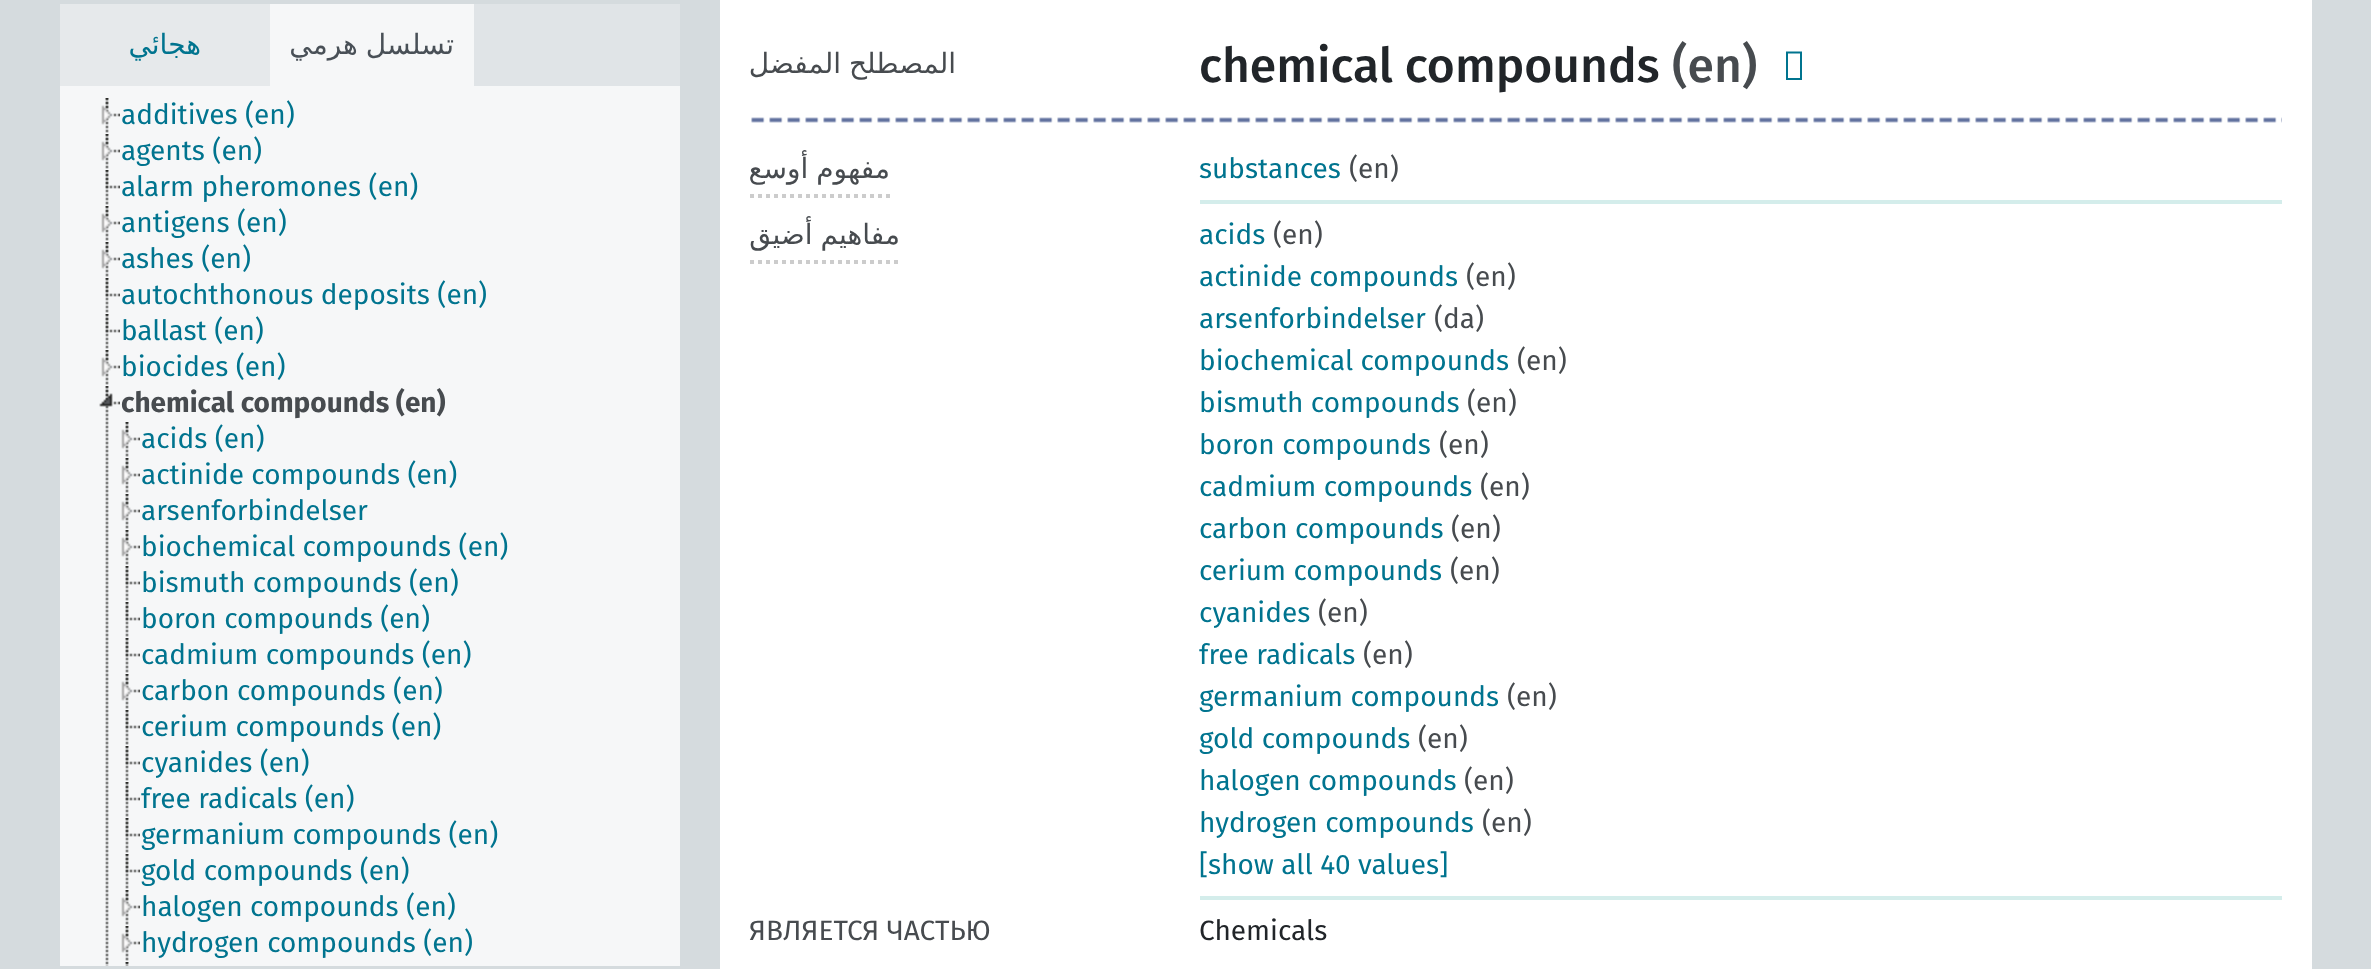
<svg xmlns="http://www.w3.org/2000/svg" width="2371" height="969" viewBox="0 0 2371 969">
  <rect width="100%" height="100%" fill="rgb(213,219,222)"/>
  <rect x="474" y="4" width="206" height="82" fill="rgb(224,228,231)"/>
  <rect x="60" y="4" width="210" height="82" fill="rgb(230,233,235)"/>
  <text x="201" y="54" font-family="DejaVu Sans" font-size="28" direction="rtl" fill="rgb(0,116,143)">هجائي</text>
  <rect x="270" y="4" width="204" height="82" fill="rgb(246,247,248)"/>
  <text x="454" y="54" word-spacing="-1" font-family="DejaVu Sans" font-size="28" direction="rtl" fill="rgb(73,80,87)">تسلسل هرمي</text>
  <rect x="60" y="86" width="620" height="880" fill="rgb(246,247,248)"/>
  <image x="105" y="98" width="4" height="35" href="pic1.png"/>
  <image x="101" y="98" width="19" height="27" href="pic2.png"/>
  <text x="121" y="124" font-family="Fira Sans" font-size="28" fill="rgb(0,116,143)">additives (en)</text>
  <image x="105" y="134" width="4" height="35" href="pic1.png"/>
  <image x="101" y="134" width="19" height="27" href="pic2.png"/>
  <text x="121" y="160" font-family="Fira Sans" font-size="28" fill="rgb(0,116,143)">agents (en)</text>
  <image x="105" y="170" width="4" height="35" href="pic1.png"/>
  <image x="105" y="170" width="15" height="19" href="pic3.png"/>
  <text x="121" y="196" font-family="Fira Sans" font-size="28" fill="rgb(0,116,143)">alarm pheromones (en)</text>
  <image x="105" y="206" width="4" height="35" href="pic1.png"/>
  <image x="101" y="206" width="19" height="27" href="pic2.png"/>
  <text x="121" y="232" font-family="Fira Sans" font-size="28" fill="rgb(0,116,143)">antigens (en)</text>
  <image x="105" y="242" width="4" height="35" href="pic1.png"/>
  <image x="101" y="242" width="19" height="27" href="pic2.png"/>
  <text x="121" y="268" font-family="Fira Sans" font-size="28" fill="rgb(0,116,143)">ashes (en)</text>
  <image x="105" y="278" width="4" height="35" href="pic1.png"/>
  <image x="105" y="278" width="15" height="19" href="pic3.png"/>
  <text x="121" y="304" font-family="Fira Sans" font-size="28" fill="rgb(0,116,143)">autochthonous deposits (en)</text>
  <image x="105" y="314" width="4" height="35" href="pic1.png"/>
  <image x="105" y="314" width="15" height="19" href="pic3.png"/>
  <text x="121" y="340" font-family="Fira Sans" font-size="28" fill="rgb(0,116,143)">ballast (en)</text>
  <image x="105" y="350" width="4" height="35" href="pic1.png"/>
  <image x="101" y="350" width="19" height="27" href="pic2.png"/>
  <text x="121" y="376" font-family="Fira Sans" font-size="28" fill="rgb(0,116,143)">biocides (en)</text>
  <image x="105" y="386" width="4" height="580" href="pic4.png"/>
  <image x="99" y="386" width="21" height="21" href="pic5.png"/>
  <text x="121" y="412" font-family="Fira Sans" font-size="28" font-weight="bold" fill="rgb(71,75,79)">chemical compounds (en)</text>
  <image x="125" y="422" width="4" height="35" href="pic1.png"/>
  <image x="121" y="422" width="19" height="27" href="pic2.png"/>
  <text x="141" y="448" font-family="Fira Sans" font-size="28" fill="rgb(0,116,143)">acids (en)</text>
  <image x="125" y="458" width="4" height="35" href="pic1.png"/>
  <image x="121" y="458" width="19" height="27" href="pic2.png"/>
  <text x="141" y="484" font-family="Fira Sans" font-size="28" fill="rgb(0,116,143)">actinide compounds (en)</text>
  <image x="125" y="494" width="4" height="35" href="pic1.png"/>
  <image x="121" y="494" width="19" height="27" href="pic2.png"/>
  <text x="141" y="520" font-family="Fira Sans" font-size="28" fill="rgb(0,116,143)">arsenforbindelser</text>
  <image x="125" y="530" width="4" height="35" href="pic1.png"/>
  <image x="121" y="530" width="19" height="27" href="pic2.png"/>
  <text x="141" y="556" font-family="Fira Sans" font-size="28" fill="rgb(0,116,143)">biochemical compounds (en)</text>
  <image x="125" y="566" width="4" height="35" href="pic1.png"/>
  <image x="125" y="566" width="15" height="19" href="pic3.png"/>
  <text x="141" y="592" font-family="Fira Sans" font-size="28" fill="rgb(0,116,143)">bismuth compounds (en)</text>
  <image x="125" y="602" width="4" height="35" href="pic1.png"/>
  <image x="125" y="602" width="15" height="19" href="pic3.png"/>
  <text x="141" y="628" font-family="Fira Sans" font-size="28" fill="rgb(0,116,143)">boron compounds (en)</text>
  <image x="125" y="638" width="4" height="35" href="pic1.png"/>
  <image x="125" y="638" width="15" height="19" href="pic3.png"/>
  <text x="141" y="664" font-family="Fira Sans" font-size="28" fill="rgb(0,116,143)">cadmium compounds (en)</text>
  <image x="125" y="674" width="4" height="35" href="pic1.png"/>
  <image x="121" y="674" width="19" height="27" href="pic2.png"/>
  <text x="141" y="700" font-family="Fira Sans" font-size="28" fill="rgb(0,116,143)">carbon compounds (en)</text>
  <image x="125" y="710" width="4" height="35" href="pic1.png"/>
  <image x="125" y="710" width="15" height="19" href="pic3.png"/>
  <text x="141" y="736" font-family="Fira Sans" font-size="28" fill="rgb(0,116,143)">cerium compounds (en)</text>
  <image x="125" y="746" width="4" height="35" href="pic1.png"/>
  <image x="125" y="746" width="15" height="19" href="pic3.png"/>
  <text x="141" y="772" font-family="Fira Sans" font-size="28" fill="rgb(0,116,143)">cyanides (en)</text>
  <image x="125" y="782" width="4" height="35" href="pic1.png"/>
  <image x="125" y="782" width="15" height="19" href="pic3.png"/>
  <text x="141" y="808" font-family="Fira Sans" font-size="28" fill="rgb(0,116,143)">free radicals (en)</text>
  <image x="125" y="818" width="4" height="35" href="pic1.png"/>
  <image x="125" y="818" width="15" height="19" href="pic3.png"/>
  <text x="141" y="844" font-family="Fira Sans" font-size="28" fill="rgb(0,116,143)">germanium compounds (en)</text>
  <image x="125" y="854" width="4" height="35" href="pic1.png"/>
  <image x="125" y="854" width="15" height="19" href="pic3.png"/>
  <text x="141" y="880" font-family="Fira Sans" font-size="28" fill="rgb(0,116,143)">gold compounds (en)</text>
  <image x="125" y="890" width="4" height="35" href="pic1.png"/>
  <image x="121" y="890" width="19" height="27" href="pic2.png"/>
  <text x="141" y="916" font-family="Fira Sans" font-size="28" fill="rgb(0,116,143)">halogen compounds (en)</text>
  <image x="125" y="926" width="4" height="35" href="pic1.png"/>
  <image x="121" y="926" width="19" height="27" href="pic2.png"/>
  <text x="141" y="952" font-family="Fira Sans" font-size="28" fill="rgb(0,116,143)">hydrogen compounds (en)</text>
  <image x="125" y="962" width="4" height="4" href="pic6.png"/>
  <image x="125" y="962" width="4" height="4" href="pic7.png"/>
  <rect x="720" y="0" width="1592" height="969" fill="rgb(255,255,255)"/>
  <text x="956" y="73" word-spacing="-1" font-family="DejaVu Sans" font-size="28" direction="rtl" fill="rgb(71,75,79)">المصطلح المفضل</text>
  <text x="1199" y="82" font-family="Fira Sans" font-size="48" font-weight="500" fill="rgb(33,37,41)">chemical compounds</text>
  <text x="1672" y="82" font-family="Fira Sans" font-size="48" font-weight="500" fill="rgb(71,75,79)">(en)</text>
  <path d="M1786 80V51.5H1802V80ZM1788 78H1800V53.5H1788Z" fill="rgb(0,116,143)"/>
  <image x="751" y="117" width="1531" height="6" href="pic8.png"/>
  <path d="M750 196H890" fill="none" stroke="rgb(204,204,204)" stroke-width="4" stroke-dasharray="4 4"/>
  <text x="890" y="178" word-spacing="-1" font-family="DejaVu Sans" font-size="28" direction="rtl" fill="rgb(71,75,79)">مفهوم أوسع</text>
  <rect x="1200" y="200" width="1082" height="4" fill="rgb(212,237,235)"/>
  <text x="1199" y="178" font-family="Fira Sans" font-size="28" fill="rgb(0,116,143)">substances</text>
  <text x="1349" y="178" font-family="Fira Sans" font-size="28" fill="rgb(71,75,79)">(en)</text>
  <path d="M750 262H900" fill="none" stroke="rgb(204,204,204)" stroke-width="4" stroke-dasharray="4 4"/>
  <text x="900" y="244" word-spacing="-1" font-family="DejaVu Sans" font-size="28" direction="rtl" fill="rgb(71,75,79)">مفاهيم أضيق</text>
  <rect x="1200" y="896" width="1082" height="4" fill="rgb(212,237,235)"/>
  <text x="1199" y="244" font-family="Fira Sans" font-size="28" fill="rgb(0,116,143)">acids</text>
  <text x="1273" y="244" font-family="Fira Sans" font-size="28" fill="rgb(71,75,79)">(en)</text>
  <text x="1199" y="286" font-family="Fira Sans" font-size="28" fill="rgb(0,116,143)">actinide compounds</text>
  <text x="1466" y="286" font-family="Fira Sans" font-size="28" fill="rgb(71,75,79)">(en)</text>
  <text x="1199" y="328" font-family="Fira Sans" font-size="28" fill="rgb(0,116,143)">arsenforbindelser</text>
  <text x="1434" y="328" font-family="Fira Sans" font-size="28" fill="rgb(71,75,79)">(da)</text>
  <text x="1199" y="370" font-family="Fira Sans" font-size="28" fill="rgb(0,116,143)">biochemical compounds</text>
  <text x="1517" y="370" font-family="Fira Sans" font-size="28" fill="rgb(71,75,79)">(en)</text>
  <text x="1199" y="412" font-family="Fira Sans" font-size="28" fill="rgb(0,116,143)">bismuth compounds</text>
  <text x="1467" y="412" font-family="Fira Sans" font-size="28" fill="rgb(71,75,79)">(en)</text>
  <text x="1199" y="454" font-family="Fira Sans" font-size="28" fill="rgb(0,116,143)">boron compounds</text>
  <text x="1439" y="454" font-family="Fira Sans" font-size="28" fill="rgb(71,75,79)">(en)</text>
  <text x="1199" y="496" font-family="Fira Sans" font-size="28" fill="rgb(0,116,143)">cadmium compounds</text>
  <text x="1480" y="496" font-family="Fira Sans" font-size="28" fill="rgb(71,75,79)">(en)</text>
  <text x="1199" y="538" font-family="Fira Sans" font-size="28" fill="rgb(0,116,143)">carbon compounds</text>
  <text x="1451" y="538" font-family="Fira Sans" font-size="28" fill="rgb(71,75,79)">(en)</text>
  <text x="1199" y="580" font-family="Fira Sans" font-size="28" fill="rgb(0,116,143)">cerium compounds</text>
  <text x="1450" y="580" font-family="Fira Sans" font-size="28" fill="rgb(71,75,79)">(en)</text>
  <text x="1199" y="622" font-family="Fira Sans" font-size="28" fill="rgb(0,116,143)">cyanides</text>
  <text x="1318" y="622" font-family="Fira Sans" font-size="28" fill="rgb(71,75,79)">(en)</text>
  <text x="1199" y="664" font-family="Fira Sans" font-size="28" fill="rgb(0,116,143)">free radicals</text>
  <text x="1363" y="664" font-family="Fira Sans" font-size="28" fill="rgb(71,75,79)">(en)</text>
  <text x="1199" y="706" font-family="Fira Sans" font-size="28" fill="rgb(0,116,143)">germanium compounds</text>
  <text x="1507" y="706" font-family="Fira Sans" font-size="28" fill="rgb(71,75,79)">(en)</text>
  <text x="1199" y="748" font-family="Fira Sans" font-size="28" fill="rgb(0,116,143)">gold compounds</text>
  <text x="1418" y="748" font-family="Fira Sans" font-size="28" fill="rgb(71,75,79)">(en)</text>
  <text x="1199" y="790" font-family="Fira Sans" font-size="28" fill="rgb(0,116,143)">halogen compounds</text>
  <text x="1464" y="790" font-family="Fira Sans" font-size="28" fill="rgb(71,75,79)">(en)</text>
  <text x="1199" y="832" font-family="Fira Sans" font-size="28" fill="rgb(0,116,143)">hydrogen compounds</text>
  <text x="1482" y="832" font-family="Fira Sans" font-size="28" fill="rgb(71,75,79)">(en)</text>
  <text x="1199" y="874" font-family="Fira Sans" font-size="28" fill="rgb(0,116,143)">[show all 40 values]</text>
  <text x="749" y="940" font-family="Fira Sans" font-size="28" fill="rgb(71,75,79)">ЯВЛЯЕТСЯ ЧАСТЬЮ</text>
  <text x="1199" y="940" font-family="Fira Sans" font-size="28" fill="rgb(33,37,41)">Chemicals</text>
</svg>
